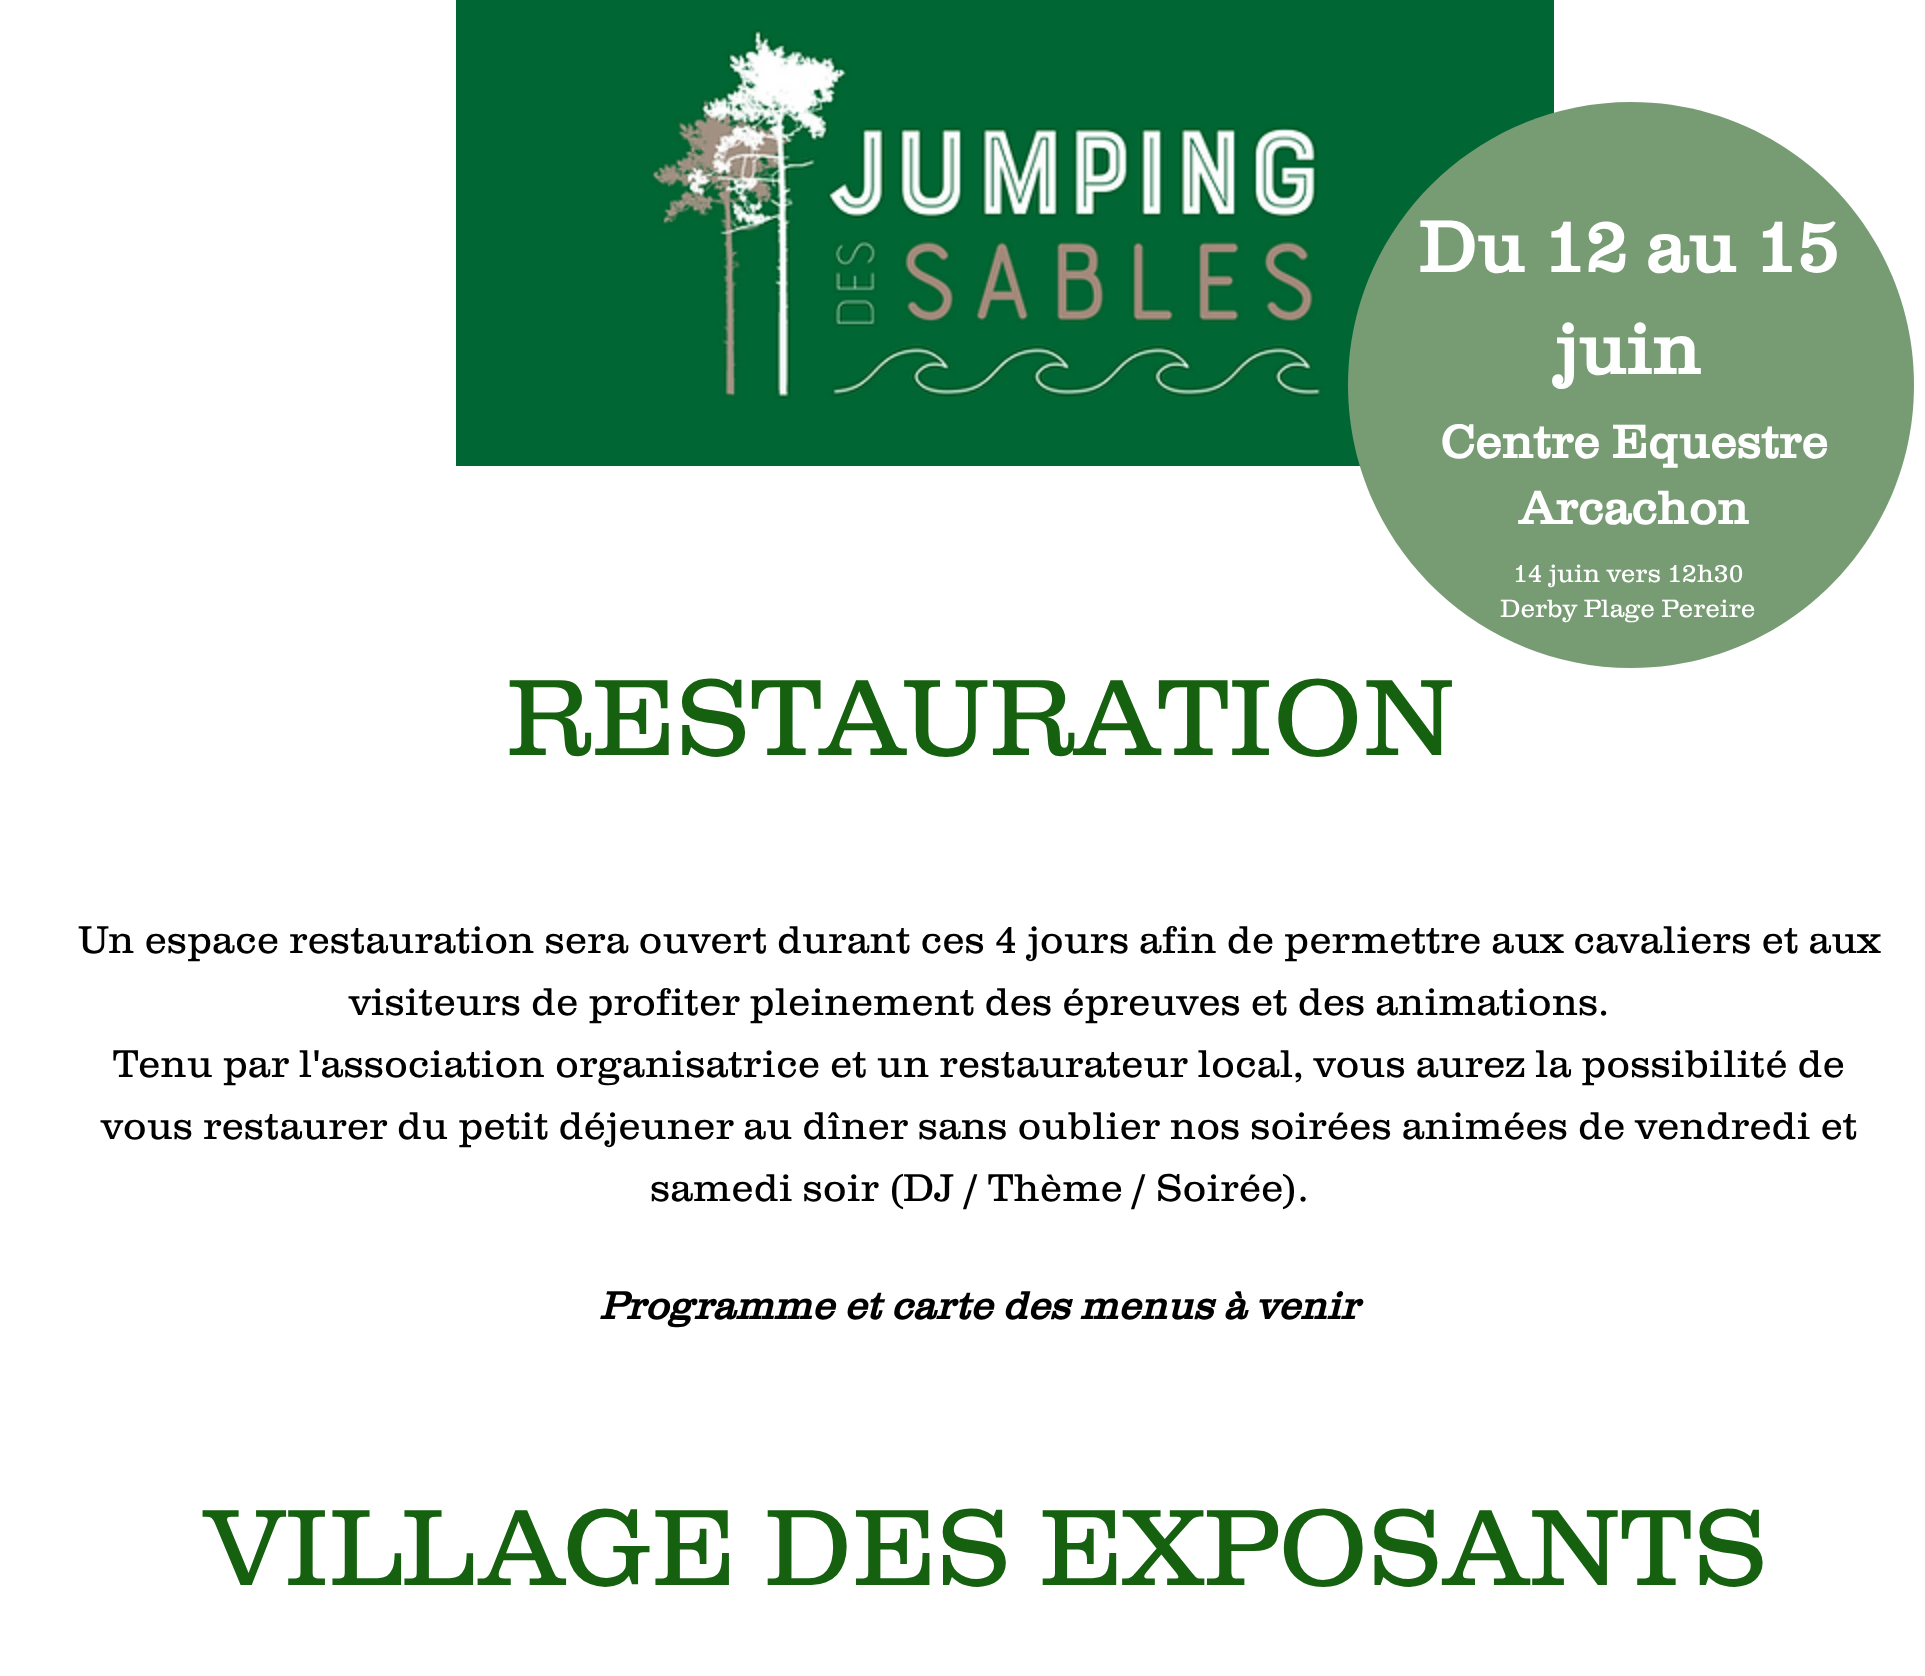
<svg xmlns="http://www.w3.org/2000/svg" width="1925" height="1676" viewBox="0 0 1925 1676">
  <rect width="100%" height="100%" fill="rgb(255,255,255)"/>
  <image x="456" y="0" width="1098" height="466" href="pic1.png"/>
  <path d="M1914 385C1914 541 1787 668 1631 668C1475 668 1348 541 1348 385C1348 229 1475 102 1631 102C1787 102 1914 229 1914 385Z" fill="rgb(119,156,116)"/>
  <g font-family="'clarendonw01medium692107'" font-size="74" font-weight="bold" fill="rgb(255,255,255)">
    <text x="1418" y="272">Du 12 au 15</text>
    <text x="1555" y="374">juin</text>
  </g>
  <g font-family="'clarendonw01medium692107'" font-size="48" font-weight="bold" fill="rgb(255,255,255)">
    <text x="1440" y="458">Centre Equestre</text>
    <text x="1519" y="524">Arcachon</text>
  </g>
  <g font-family="'clarendonw01medium692107'" font-size="26" font-weight="300" fill="rgb(255,255,255)">
    <text x="1513" y="582">14 juin vers 12h30</text>
    <text x="1500" y="617">Derby Plage Pereire</text>
  </g>
  <text x="506" y="755" font-family="'clarendonw01medium692107'" font-size="112" font-weight="300" fill="rgb(21,97,15)">RESTAURATION</text>
  <g font-family="'clarendonw01medium692107'" font-size="40" font-weight="300" fill="rgb(0,0,0)">
    <text x="78" y="953">Un espace restauration sera ouvert durant ces 4 jours afin de permettre aux cavaliers et aux</text>
    <text x="349" y="1015">visiteurs de profiter pleinement des épreuves et des animations.</text>
    <text x="113" y="1077">Tenu par l'association organisatrice et un restaurateur local, vous aurez la possibilité de</text>
    <text x="101" y="1139">vous restaurer du petit déjeuner au dîner sans oublier nos soirées animées de vendredi et</text>
    <text x="650" y="1201">samedi soir (DJ / Thème / Soirée).</text>
  </g>
  <text x="599" y="1319" font-family="'clarendonw01medium692107'" font-size="40" font-weight="bold" font-style="italic" fill="rgb(0,0,0)">Programme et carte des menus à venir</text>
  <text x="204" y="1585" font-family="'clarendonw01medium692107'" font-size="112" font-weight="300" fill="rgb(21,97,15)">VILLAGE DES EXPOSANTS</text>
</svg>
